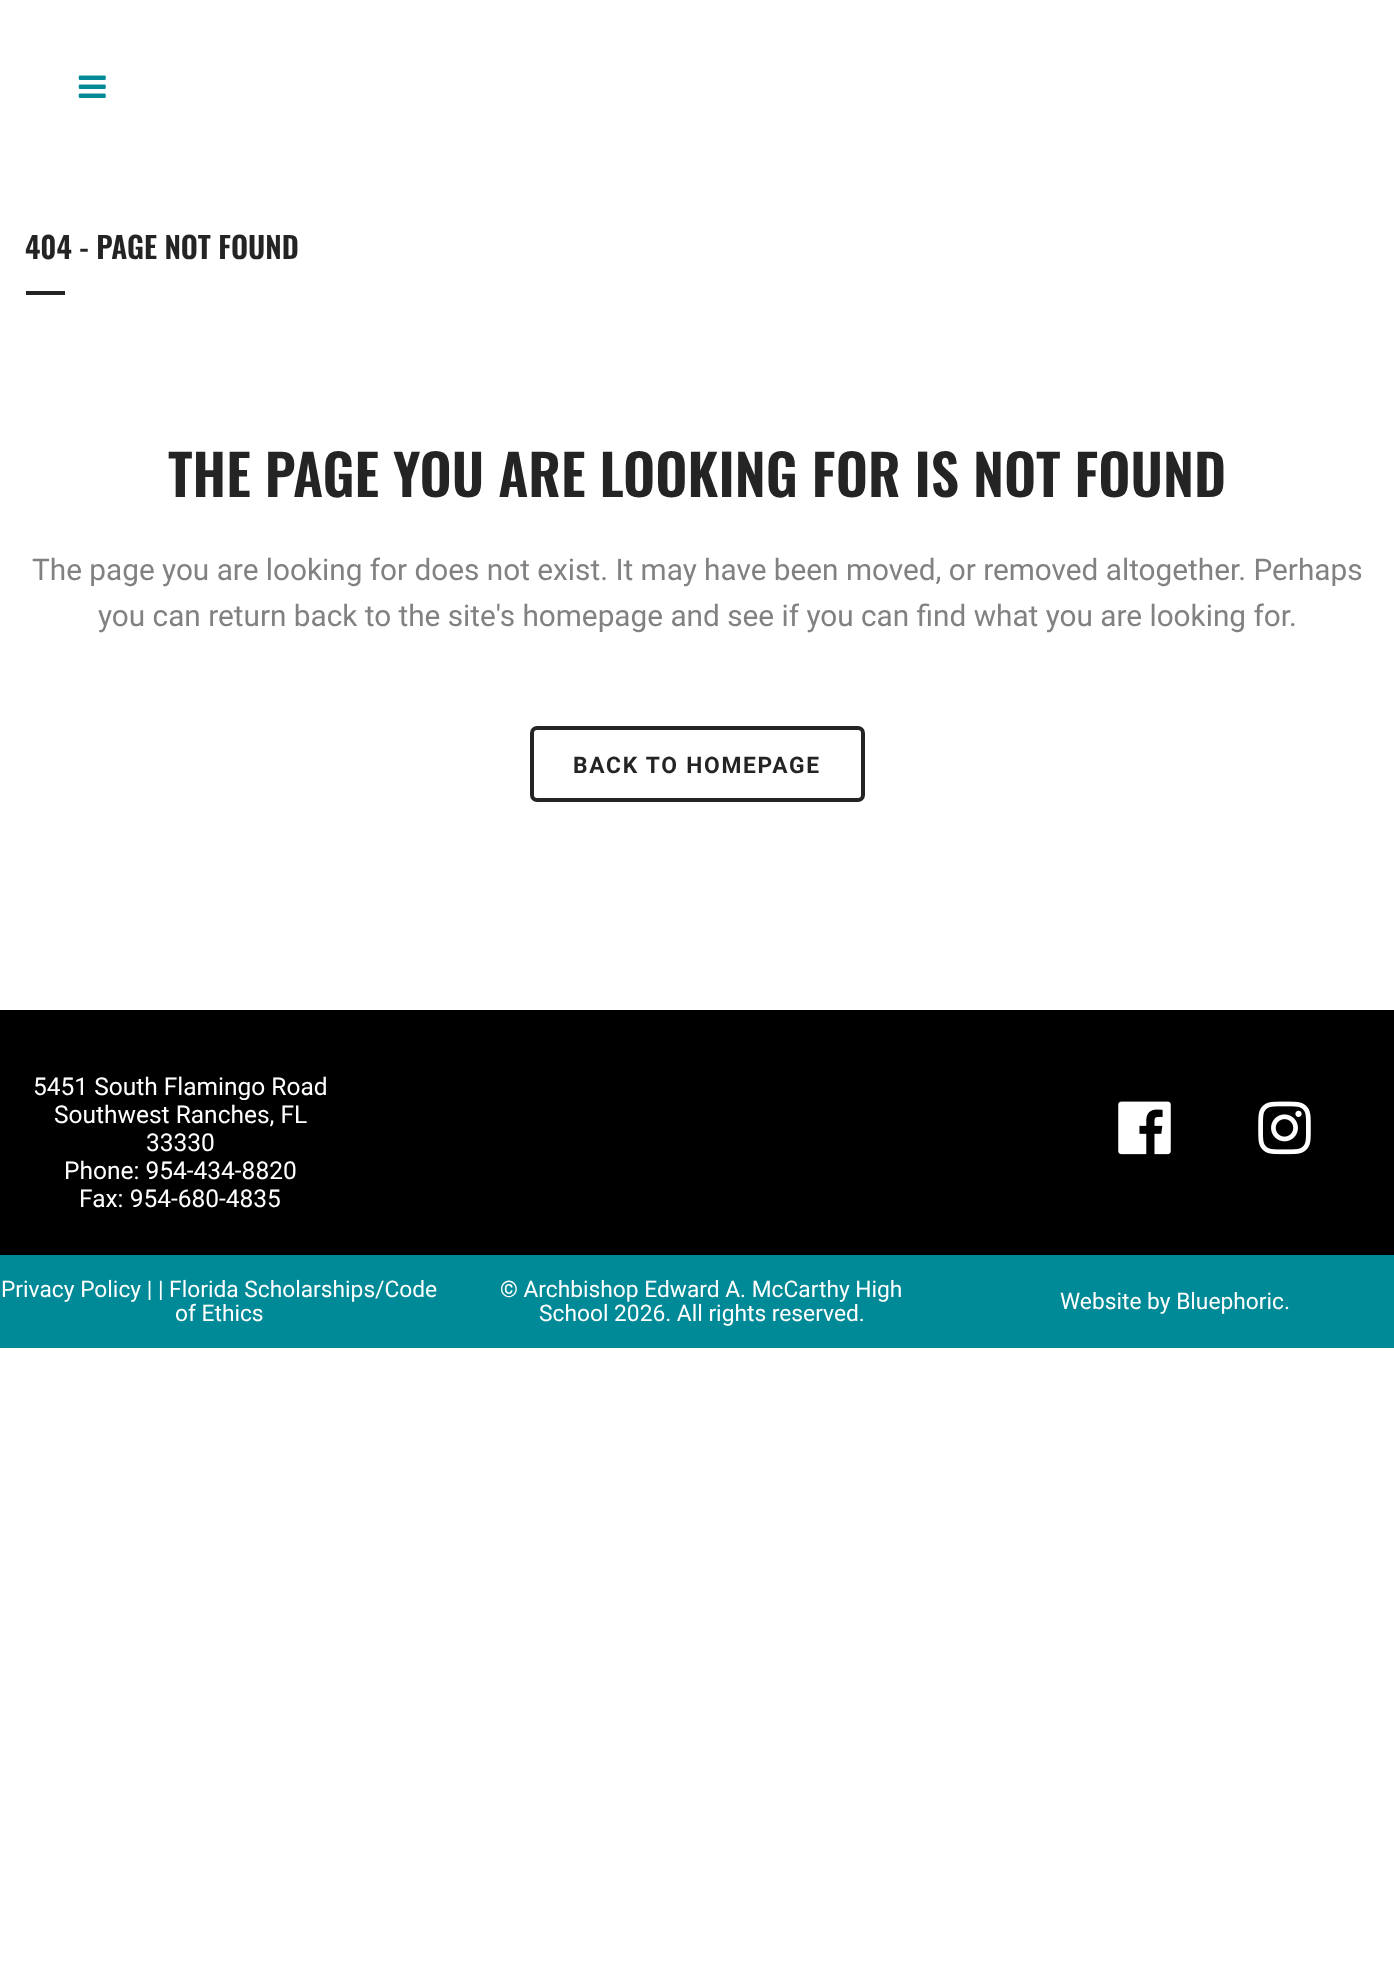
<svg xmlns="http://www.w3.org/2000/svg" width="1394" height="1981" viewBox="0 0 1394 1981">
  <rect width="100%" height="100%" fill="rgb(255,255,255)"/>
  <image x="78" y="75" width="28" height="23" href="pic1.png"/>
  <text x="25" y="259" font-family="Oswald" font-size="29.75" font-weight="600" fill="rgb(36,36,36)">404 - PAGE NOT FOUND</text>
  <rect x="26" y="291" width="39" height="4" fill="rgb(36,36,36)"/>
  <text x="168" y="497" font-family="Oswald" font-size="56" font-weight="600" fill="rgb(36,36,36)">THE PAGE YOU ARE LOOKING FOR IS NOT FOUND</text>
  <g font-family="Roboto" font-size="29.75" fill="rgb(129,129,129)">
    <text x="32" y="580">The page you are looking for does not exist. It may have been moved, or removed altogether. Perhaps</text>
    <text x="98" y="626">you can return back to the site's homepage and see if you can find what you are looking for.</text>
  </g>
  <rect x="532" y="728" width="331" height="72" rx="5" fill="none" stroke="rgb(36,36,36)" stroke-width="4"/>
  <text x="573" y="773" font-family="Roboto" font-size="22.75" font-weight="bold" letter-spacing="1.75" fill="rgb(36,36,36)">BACK TO HOMEPAGE</text>
  <rect x="0" y="1010" width="1394" height="245" fill="rgb(0,0,0)"/>
  <g font-family="Roboto" font-size="24.5" fill="rgb(255,255,255)">
    <text x="33" y="1095">5451 South Flamingo Road</text>
    <text x="54" y="1123">Southwest Ranches, FL</text>
    <text x="146" y="1151">33330</text>
    <text x="64" y="1179">Phone: 954-434-8820</text>
    <text x="79" y="1207">Fax: 954-680-4835</text>
  </g>
  <image x="1118" y="1101" width="53" height="54" href="pic2.png"/>
  <image x="1258" y="1101" width="53" height="54" href="pic3.png"/>
  <rect x="0" y="1255" width="1394" height="93" fill="rgb(0,137,150)"/>
  <g font-family="Roboto" font-size="22.75" fill="rgb(255,255,255)">
    <text x="1" y="1297">Privacy Policy | | Florida Scholarships/Code</text>
    <text x="175" y="1321">of Ethics</text>
    <text x="500" y="1297">© Archbishop Edward A. McCarthy High</text>
    <text x="539" y="1321">School 2026. All rights reserved.</text>
    <text x="1060" y="1309">Website by Bluephoric.</text>
  </g>
</svg>
